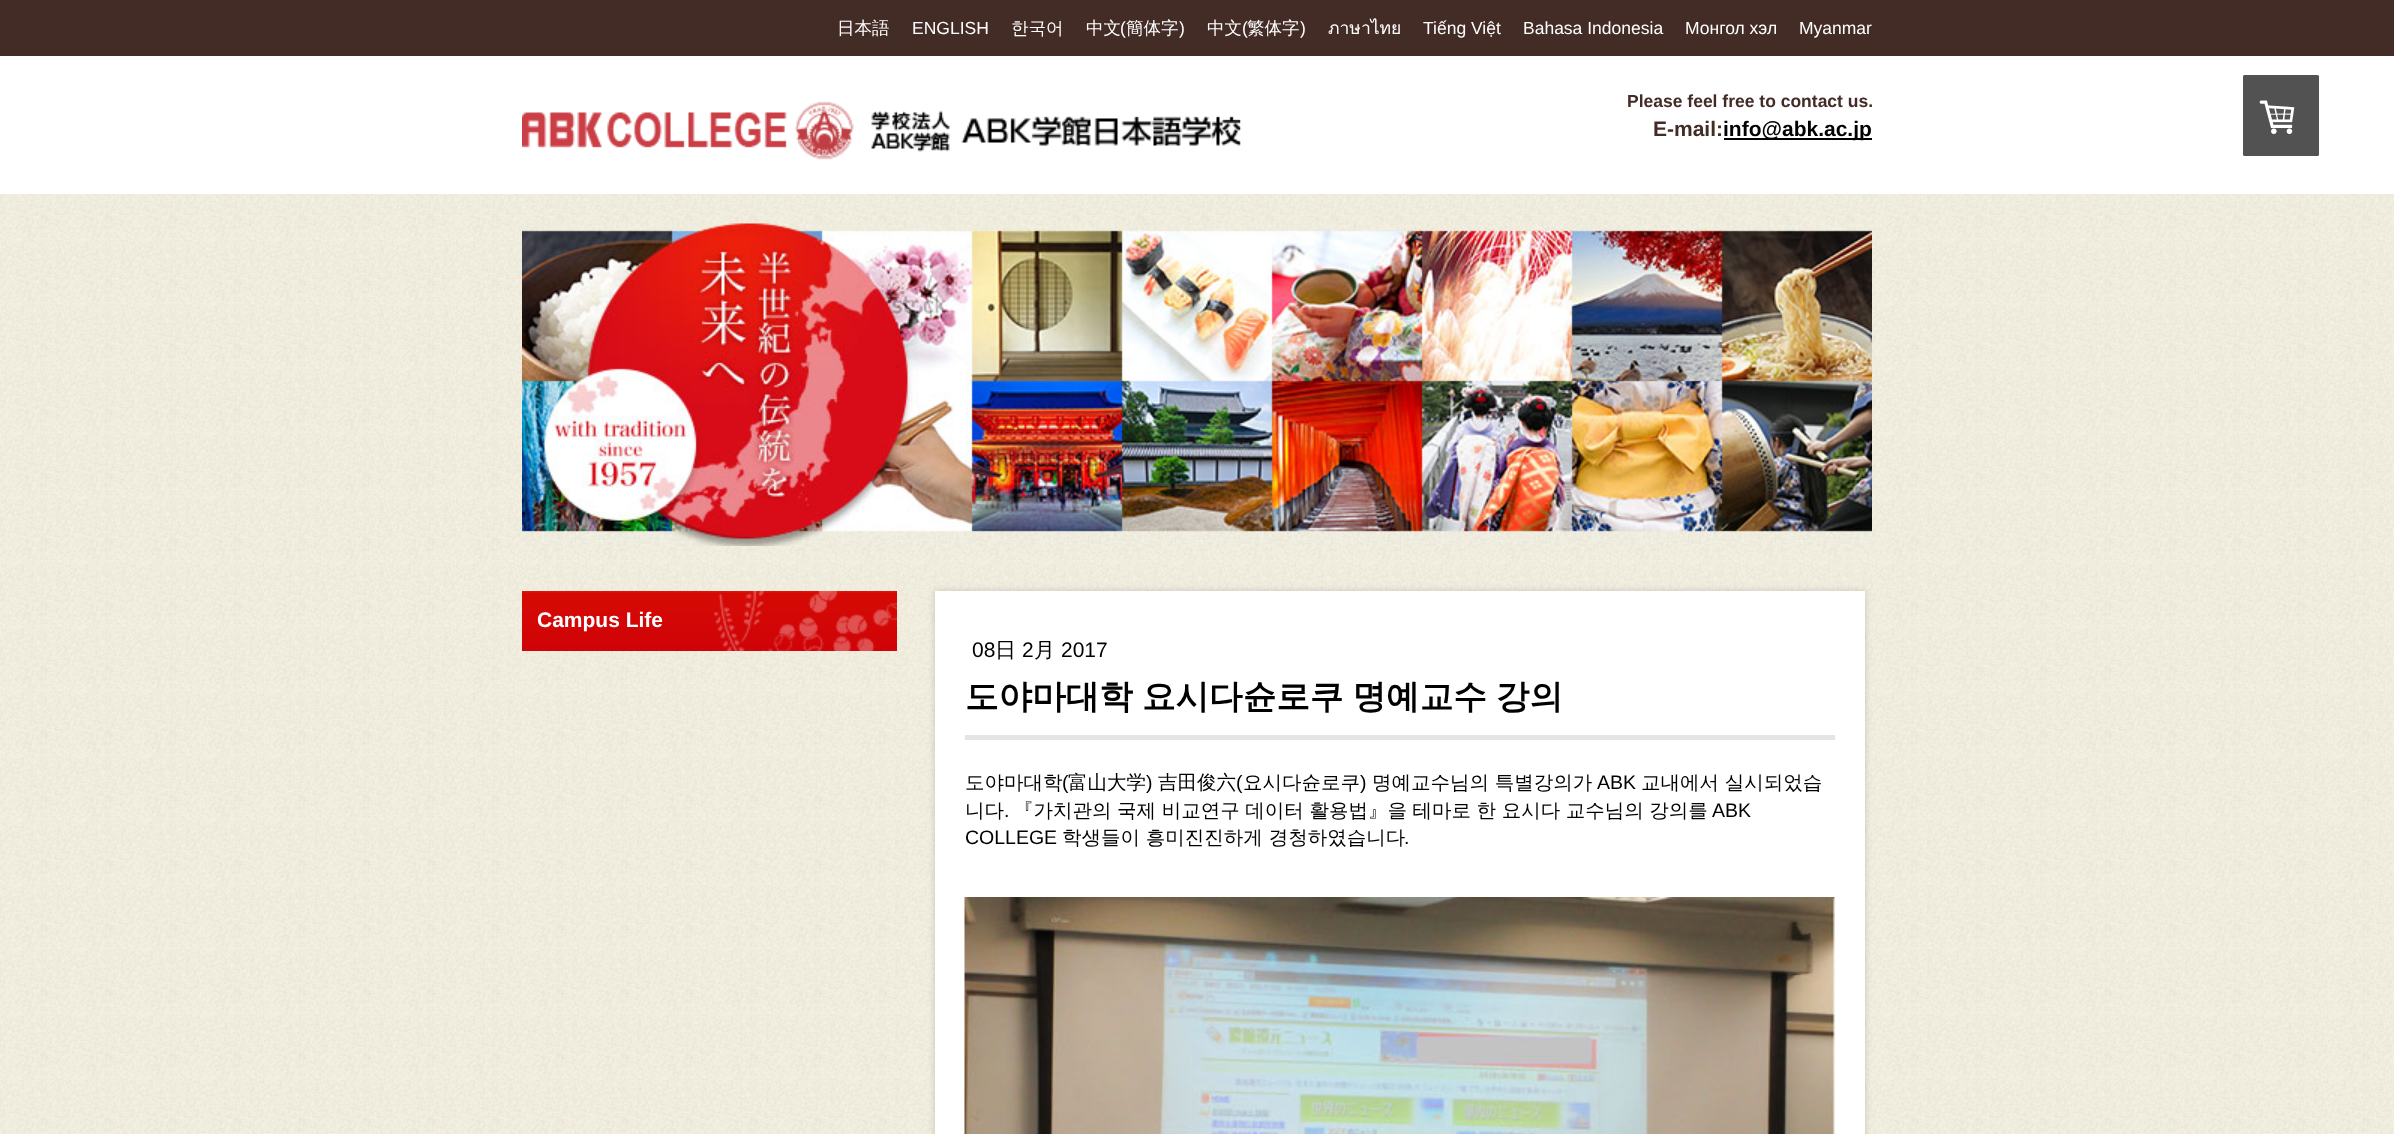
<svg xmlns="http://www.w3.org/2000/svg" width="2394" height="1134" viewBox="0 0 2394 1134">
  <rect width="100%" height="100%" fill="rgb(255,255,255)"/>
  <image x="0" y="194" width="2394" height="940" href="pic1.png"/>
  <rect x="0" y="0" width="2394" height="56" fill="rgb(67,43,38)"/>
  <text x="837" y="34" font-family="WenQuanYi Zen Hei" font-size="17.5" font-weight="500" fill="rgb(255,255,255)">日本語</text>
  <text x="912" y="34" font-family="Liberation Sans" font-size="17.5" fill="rgb(255,255,255)">ENGLISH</text>
  <g font-family="WenQuanYi Zen Hei" font-size="17.5" font-weight="500" fill="rgb(255,255,255)">
    <text x="1011" y="34">한국어</text>
    <text x="1086" y="34">中文</text>
  </g>
  <text x="1120" y="34" font-family="Liberation Sans" font-size="17.5" fill="rgb(255,255,255)">(</text>
  <text x="1126" y="34" font-family="WenQuanYi Zen Hei" font-size="17.5" font-weight="500" fill="rgb(255,255,255)">簡体字</text>
  <text x="1179" y="34" font-family="Liberation Sans" font-size="17.5" fill="rgb(255,255,255)">)</text>
  <text x="1207" y="34" font-family="WenQuanYi Zen Hei" font-size="17.5" font-weight="500" fill="rgb(255,255,255)">中文</text>
  <text x="1242" y="34" font-family="Liberation Sans" font-size="17.5" fill="rgb(255,255,255)">(</text>
  <text x="1247" y="34" font-family="WenQuanYi Zen Hei" font-size="17.5" font-weight="500" fill="rgb(255,255,255)">繁体字</text>
  <text x="1300" y="34" font-family="Liberation Sans" font-size="17.5" fill="rgb(255,255,255)">)</text>
  <text x="1328" y="34" font-family="Loma" font-size="17.5" fill="rgb(255,255,255)">ภาษาไทย</text>
  <g font-family="Liberation Sans" font-size="17.5" fill="rgb(255,255,255)">
    <text x="1423" y="34">Tiếng Việt</text>
    <text x="1523" y="34">Bahasa Indonesia</text>
    <text x="1685" y="34">Монгол хэл</text>
    <text x="1799" y="34">Myanmar</text>
  </g>
  <image x="522" y="101" width="719" height="59" href="pic2.png"/>
  <text x="1627" y="107" font-family="Liberation Sans" font-size="17.5" font-weight="bold" fill="rgb(67,43,38)">Please feel free to contact us.</text>
  <text x="1653" y="136" font-family="Liberation Sans" font-size="21" font-weight="bold" fill="rgb(67,43,38)">E-mail:</text>
  <rect x="1724" y="138" width="148" height="2" fill="rgb(0,0,0)"/>
  <text x="1723" y="136" font-family="Liberation Sans" font-size="21" font-weight="bold" fill="rgb(0,0,0)">info@abk.ac.jp</text>
  <image x="522" y="223" width="1350" height="323" href="pic3.png"/>
  <rect x="2243" y="75" width="76" height="81" rx="1.5" fill="rgb(82,82,82)"/>
  <image x="2259" y="100" width="36" height="34" href="pic4.png"/>
  <image x="522" y="591" width="375" height="60" href="pic5.png"/>
  <text x="537" y="627" font-family="Liberation Sans" font-size="21" font-weight="bold" fill="rgb(255,255,255)">Campus Life</text>
  <rect x="935" y="591" width="930" height="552" fill="rgba(13,13,13,0.18)" filter="blur(3px)"/>
  <rect x="935" y="591" width="930" height="543" fill="rgb(255,255,255)"/>
  <text x="972" y="657" font-family="Liberation Sans" font-size="21" fill="rgb(0,0,0)">08</text>
  <text x="995" y="657" font-family="WenQuanYi Zen Hei" font-size="21" font-weight="500" fill="rgb(0,0,0)">日</text>
  <text x="1022" y="657" font-family="Liberation Sans" font-size="21" fill="rgb(0,0,0)">2</text>
  <text x="1034" y="657" font-family="WenQuanYi Zen Hei" font-size="21" font-weight="500" fill="rgb(0,0,0)">月</text>
  <text x="1061" y="657" font-family="Liberation Sans" font-size="21" fill="rgb(0,0,0)">2017</text>
  <rect x="965" y="735" width="870" height="5" fill="rgb(229,229,229)"/>
  <text x="965" y="708" word-spacing="-1" font-family="WenQuanYi Zen Hei" font-size="33.6" font-weight="bold" fill="rgb(0,0,0)">도야마대학 요시다슌로쿠 명예교수 강의</text>
  <text x="965" y="789" font-family="WenQuanYi Zen Hei" font-size="19.5" font-weight="500" fill="rgb(0,0,0)">도야마대학</text>
  <text x="1062" y="789" font-family="Liberation Sans" font-size="19.5" fill="rgb(0,0,0)">(</text>
  <text x="1068" y="789" font-family="WenQuanYi Zen Hei" font-size="19.5" font-weight="500" fill="rgb(0,0,0)">富山大学</text>
  <text x="1146" y="789" font-family="Liberation Sans" font-size="19.5" fill="rgb(0,0,0)">)</text>
  <text x="1158" y="789" font-family="WenQuanYi Zen Hei" font-size="19.5" font-weight="500" fill="rgb(0,0,0)">吉田俊六</text>
  <text x="1236" y="789" font-family="Liberation Sans" font-size="19.5" fill="rgb(0,0,0)">(</text>
  <text x="1243" y="789" font-family="WenQuanYi Zen Hei" font-size="19.5" font-weight="500" fill="rgb(0,0,0)">요시다슌로쿠</text>
  <text x="1360" y="789" font-family="Liberation Sans" font-size="19.5" fill="rgb(0,0,0)">)</text>
  <text x="1372" y="789" font-family="WenQuanYi Zen Hei" font-size="19.5" font-weight="500" fill="rgb(0,0,0)">명예교수님의 특별강의가</text>
  <text x="1597" y="789" font-family="Liberation Sans" font-size="19.5" fill="rgb(0,0,0)">ABK</text>
  <g font-family="WenQuanYi Zen Hei" font-size="19.5" font-weight="500" fill="rgb(0,0,0)">
    <text x="1641" y="789">교내에서 실시되었습</text>
    <text x="965" y="817">니다</text>
  </g>
  <text x="1004" y="817" font-family="Liberation Sans" font-size="19.5" fill="rgb(0,0,0)">.</text>
  <text x="1014" y="817" word-spacing="-0.25" font-family="WenQuanYi Zen Hei" font-size="19.5" font-weight="500" fill="rgb(0,0,0)">『가치관의 국제 비교연구 데이터 활용법』을 테마로 한 요시다 교수님의 강의를</text>
  <g font-family="Liberation Sans" font-size="19.5" fill="rgb(0,0,0)">
    <text x="1712" y="817">ABK</text>
    <text x="965" y="844">COLLEGE</text>
  </g>
  <text x="1062" y="844" font-family="WenQuanYi Zen Hei" font-size="19.5" font-weight="500" fill="rgb(0,0,0)">학생들이 흥미진진하게 경청하였습니다</text>
  <text x="1404" y="844" font-family="Liberation Sans" font-size="19.5" fill="rgb(0,0,0)">.</text>
  <image x="964" y="897" width="871" height="237" href="pic6.png"/>
</svg>
